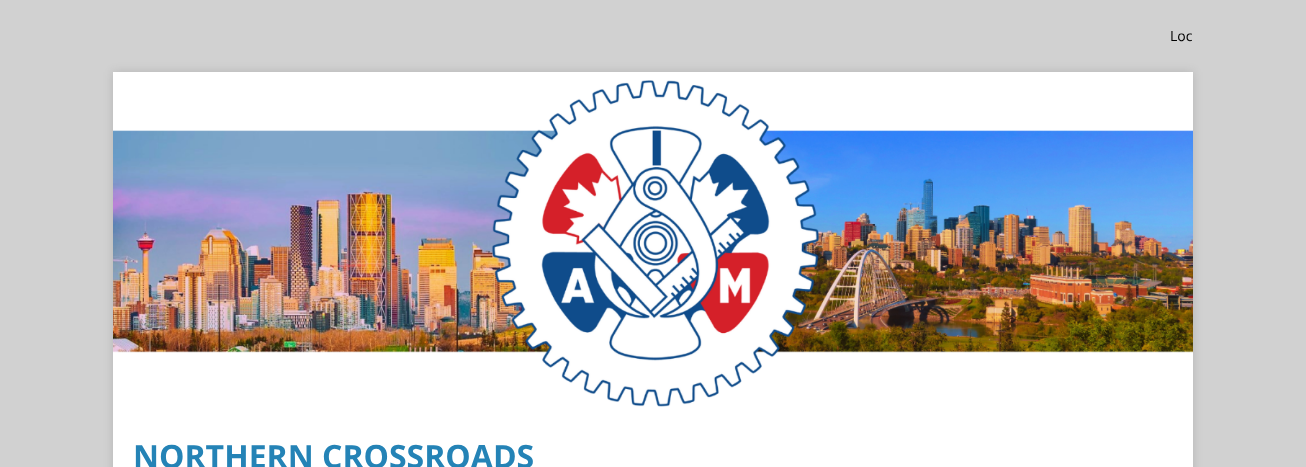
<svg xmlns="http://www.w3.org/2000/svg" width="1306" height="467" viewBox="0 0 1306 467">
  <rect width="100%" height="100%" fill="rgb(209,209,209)"/>
  <text x="1170" y="41" font-family="Open Sans" font-size="14" fill="rgb(0,0,0)">Loc</text>
  <rect x="113" y="72" width="1080" height="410" fill="rgba(50,50,50,0.17)" filter="blur(5px)"/>
  <rect x="113" y="72" width="1080" height="395" fill="rgb(255,255,255)"/>
  <image x="113" y="80" width="1080" height="327" href="pic1.png"/>
  <text x="133" y="468" font-family="Open Sans" font-size="32" font-weight="bold" fill="rgb(36,131,182)">NORTHERN CROSSROADS</text>
</svg>
